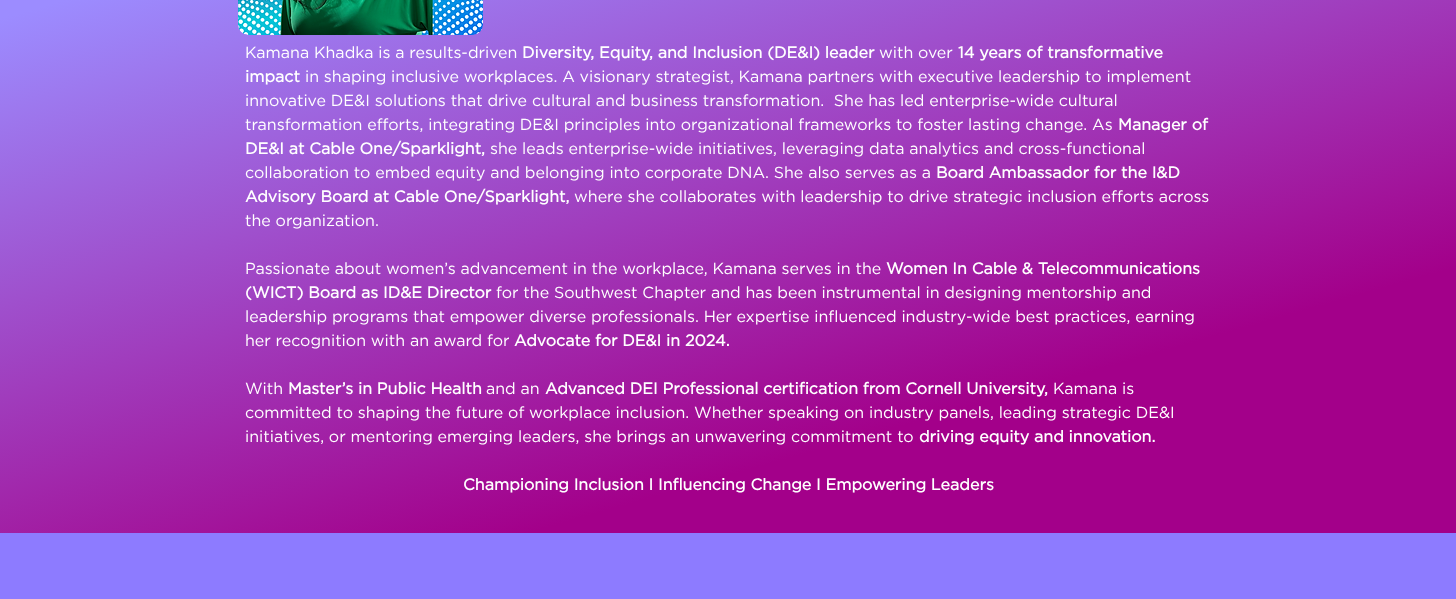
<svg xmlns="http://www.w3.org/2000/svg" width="1456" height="599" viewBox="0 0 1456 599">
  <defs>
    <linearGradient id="g1" gradientUnits="userSpaceOnUse" x1="888" y1="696" x2="568" y2="-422"><stop offset="0.22" stop-color="rgb(163,0,138)"/><stop offset="0.77" stop-color="rgb(156,140,255)"/></linearGradient>
  </defs>
  <rect width="100%" height="100%" fill="rgb(255,255,255)"/>
  <rect x="0" y="0" width="1456" height="533" fill="url(#g1)"/>
  <image x="238" y="0" width="245" height="35" href="pic1.png"/>
  <text x="245" y="58" font-family="Gotham" font-size="16" fill="rgb(255,255,255)">Kamana Khadka is a results-driven</text>
  <text x="522" y="58" font-family="Gotham" font-size="16" font-weight="bold" fill="rgb(255,255,255)">Diversity, Equity, and Inclusion (DE&amp;I) leader</text>
  <text x="879" y="58" font-family="Gotham" font-size="16" fill="rgb(255,255,255)">with over</text>
  <g font-family="Gotham" font-size="16" font-weight="bold" fill="rgb(255,255,255)">
    <text x="958" y="58">14 years of transformative</text>
    <text x="245" y="82">impact</text>
  </g>
  <g font-family="Gotham" font-size="16" fill="rgb(255,255,255)">
    <text x="305" y="82">in shaping inclusive workplaces. A visionary strategist, Kamana partners with executive leadership to implement</text>
    <text xml:space="preserve"><tspan x="245" y="106">innovative DE&amp;I solutions that drive cultural and business transformation.  She has led enterprise-wide cultural</tspan><tspan x="245" y="130">transformation efforts, integrating DE&amp;I principles into organizational frameworks to foster lasting change. As</tspan></text>
  </g>
  <g font-family="Gotham" font-size="16" font-weight="bold" fill="rgb(255,255,255)">
    <text x="1118" y="130">Manager of</text>
    <text x="245" y="154">DE&amp;I at Cable One/Sparklight,</text>
  </g>
  <g font-family="Gotham" font-size="16" fill="rgb(255,255,255)">
    <text x="490" y="154">she leads enterprise-wide initiatives, leveraging data analytics and cross-functional</text>
    <text x="245" y="178">collaboration to embed equity and belonging into corporate DNA. She also serves as a</text>
  </g>
  <g font-family="Gotham" font-size="16" font-weight="bold" fill="rgb(255,255,255)">
    <text x="936" y="178">Board Ambassador for the I&amp;D</text>
    <text x="245" y="202">Advisory Board at Cable One/Sparklight,</text>
  </g>
  <g font-family="Gotham" font-size="16" fill="rgb(255,255,255)">
    <text x="574" y="202">where she collaborates with leadership to drive strategic inclusion efforts across</text>
    <text x="245" y="226">the organization.</text>
    <text x="245" y="274">Passionate about women’s advancement in the workplace, Kamana serves in the</text>
  </g>
  <g font-family="Gotham" font-size="16" font-weight="bold" fill="rgb(255,255,255)">
    <text x="886" y="274">Women In Cable &amp; Telecommunications</text>
    <text x="245" y="298">(WICT) Board as ID&amp;E Director</text>
  </g>
  <g font-family="Gotham" font-size="16" fill="rgb(255,255,255)">
    <text x="496" y="298">for the Southwest Chapter and has been instrumental in designing mentorship and</text>
    <text>
      <tspan x="245" y="322">leadership programs that empower diverse professionals. Her expertise influenced industry-wide best practices, earning</tspan>
      <tspan x="245" y="346">her recognition with an award for</tspan>
    </text>
  </g>
  <text x="514" y="346" font-family="Gotham" font-size="16" font-weight="bold" fill="rgb(255,255,255)">Advocate for DE&amp;I in 2024.</text>
  <text x="245" y="394" font-family="Gotham" font-size="16" fill="rgb(255,255,255)">With</text>
  <text x="288" y="394" font-family="Gotham" font-size="16" font-weight="bold" fill="rgb(255,255,255)">Master’s in Public Health</text>
  <text x="486" y="394" font-family="Gotham" font-size="16" fill="rgb(255,255,255)">and an</text>
  <text x="545" y="394" font-family="Gotham" font-size="16" font-weight="bold" fill="rgb(255,255,255)">Advanced DEI Professional certification from Cornell University,</text>
  <g font-family="Gotham" font-size="16" fill="rgb(255,255,255)">
    <text x="1053" y="394">Kamana is</text>
    <text>
      <tspan x="245" y="418">committed to shaping the future of workplace inclusion. Whether speaking on industry panels, leading strategic DE&amp;I</tspan>
      <tspan x="245" y="442">initiatives, or mentoring emerging leaders, she brings an unwavering commitment to</tspan>
    </text>
  </g>
  <g font-family="Gotham" font-size="16" font-weight="bold" fill="rgb(255,255,255)">
    <text x="919" y="442">driving equity and innovation.</text>
    <text x="463" y="490">Championing Inclusion I Influencing Change I Empowering Leaders</text>
  </g>
  <rect x="0" y="533" width="1456" height="66" fill="rgb(141,123,255)"/>
</svg>
